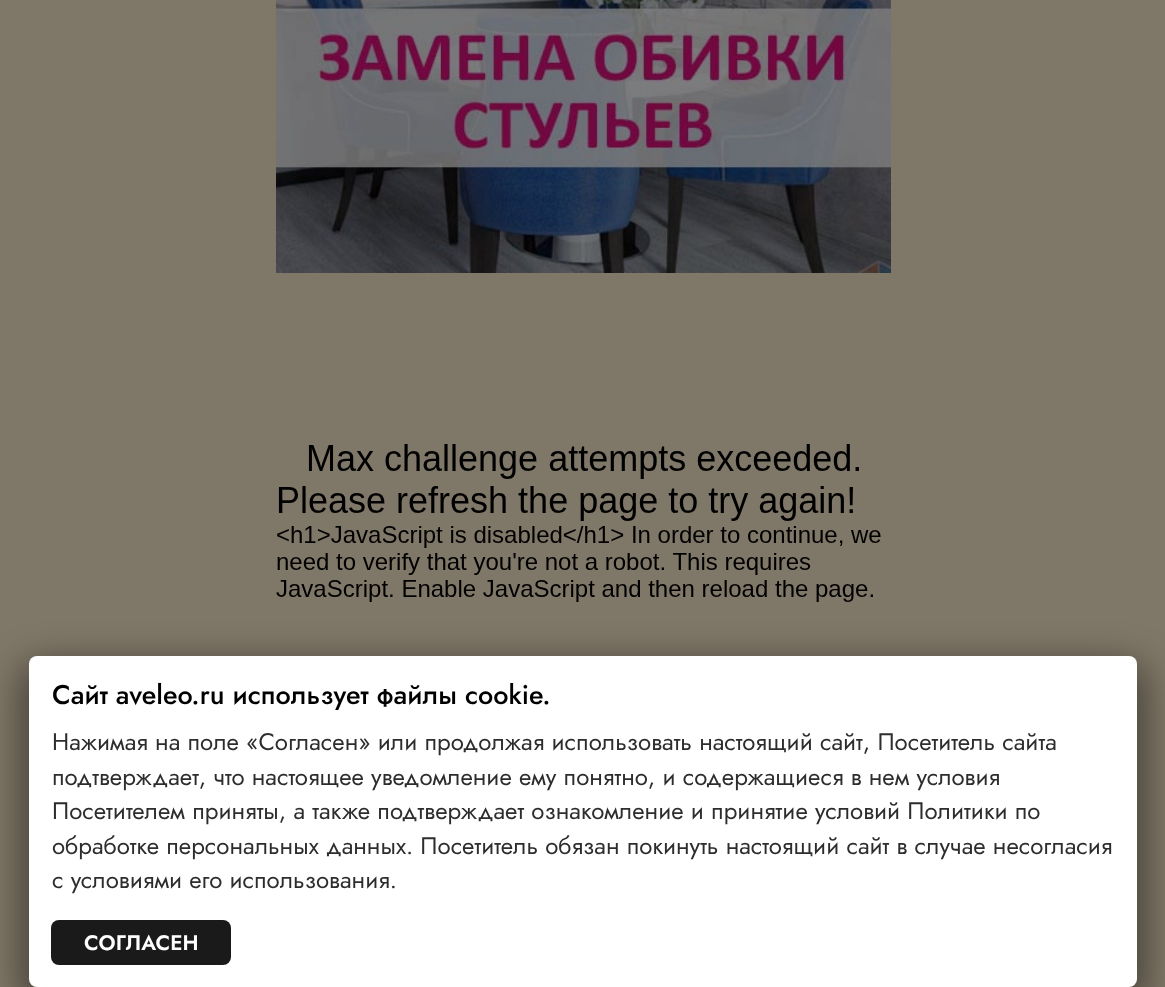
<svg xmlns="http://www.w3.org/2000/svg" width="1165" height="987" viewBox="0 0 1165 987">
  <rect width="100%" height="100%" fill="rgb(127,119,103)"/>
  <image x="276" y="0" width="615" height="273" href="pic1.png"/>
  <image x="276" y="444" width="605" height="158" href="pic2.png"/>
  <rect x="23" y="665" width="1120" height="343" rx="14" fill="rgba(2,2,2,0.5)" filter="blur(19px)"/>
  <rect x="29" y="656" width="1108" height="331" rx="8" fill="rgb(255,255,255)"/>
  <text x="52" y="704" font-family="Jost" font-size="27" font-weight="500" fill="rgb(0,0,0)">Сайт aveleo.ru использует файлы cookie.</text>
  <g font-family="Jost" font-size="24" fill="rgb(45,45,45)">
    <text>
      <tspan x="52" y="750">Нажимая на поле «Согласен» или продолжая использовать настоящий сайт, Посетитель сайта</tspan>
      <tspan x="52" y="785">подтверждает, что настоящее уведомление ему понятно, и содержащиеся в нем условия</tspan>
      <tspan x="52" y="819">Посетителем приняты, а также подтверждает ознакомление и принятие условий Политики по</tspan>
      <tspan x="52" y="854">обработке персональных данных. Посетитель обязан покинуть настоящий сайт в случае несогласия</tspan>
      <tspan x="52" y="888">с условиями его использования.</tspan>
    </text>
  </g>
  <rect x="51" y="920" width="180" height="45" rx="8" fill="rgb(26,26,26)"/>
  <text x="84" y="950" font-family="Jost" font-size="21" font-weight="600" fill="rgb(255,255,255)">СОГЛАСЕН</text>
</svg>
